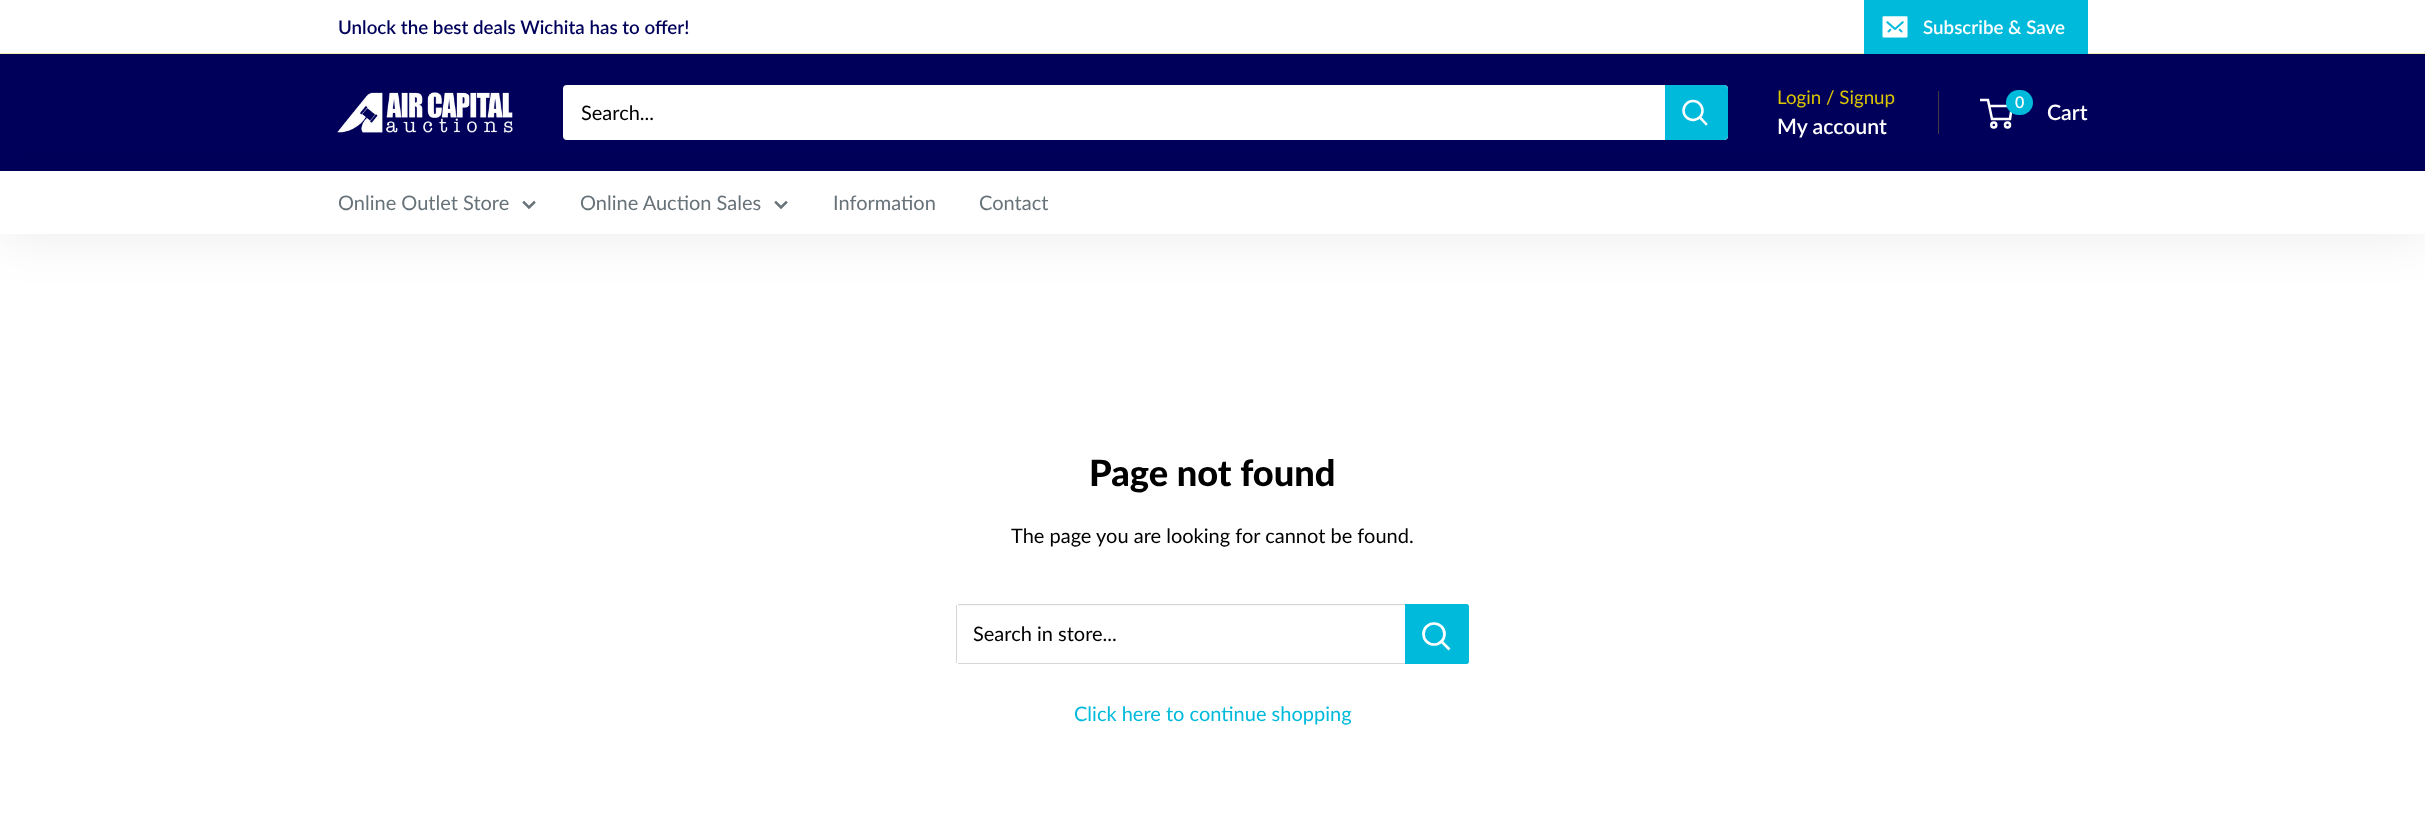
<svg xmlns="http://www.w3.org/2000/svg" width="2425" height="814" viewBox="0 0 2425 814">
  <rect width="100%" height="100%" fill="rgb(255,255,255)"/>
  <rect x="0" y="53" width="2425" height="1" fill="rgb(244,238,179)"/>
  <text x="338" y="34" font-family="Lato" font-size="18.75" font-weight="600" fill="rgb(0,0,91)">Unlock the best deals Wichita has to offer!</text>
  <path d="M1864 52V54H2088V1V52Z" fill="rgb(0,186,219)"/>
  <rect x="1864" y="0" width="224" height="52" fill="rgb(0,186,219)"/>
  <image x="1882" y="16" width="26" height="22" href="pic1.png"/>
  <text x="1923" y="34" font-family="Lato" font-size="18.75" font-weight="600" fill="rgb(255,255,255)">Subscribe &amp; Save</text>
  <rect x="0" y="54" width="2425" height="117" fill="rgb(0,0,91)"/>
  <image x="337" y="92" width="176" height="41" href="pic2.png"/>
  <rect x="1938" y="91" width="1" height="43" fill="rgb(66,59,64)"/>
  <circle cx="1993.8" cy="125" r="2.5" fill="none" stroke="rgb(255,255,255)" stroke-width="2.5"/>
  <circle cx="2007.5" cy="125" r="2.5" fill="none" stroke="rgb(255,255,255)" stroke-width="2.5"/>
  <path d="M1989 106H2012L2010 119H1992L1988 100H1980" fill="none" stroke="rgb(255,255,255)" stroke-width="2.5"/>
  <rect x="0" y="176" width="2425" height="63" fill="rgba(0,0,0,0.07)" filter="blur(25px)"/>
  <rect x="563" y="85" width="1165" height="55" rx="4" fill="rgb(255,255,255)"/>
  <text x="581" y="120" font-family="Lato" font-size="20" fill="rgb(0,0,0)">Search...</text>
  <path d="M1665 85H1724C1726 85 1728 87 1728 89V136C1728 138 1726 140 1724 140H1665Z" fill="rgb(0,186,219)"/>
  <path d="M1706 124L1700 117.5" fill="none" stroke="rgb(255,255,255)" stroke-width="2.5" stroke-linecap="square"/>
  <circle cx="1693" cy="110.5" r="9.5" fill="none" stroke="rgb(255,255,255)" stroke-width="2.5"/>
  <text x="1777" y="104" font-family="Lato" font-size="18.75" fill="rgb(219,197,0)">Login / Signup</text>
  <text x="1777" y="134" font-family="Lato" font-size="21.25" font-weight="600" fill="rgb(255,255,255)">My account</text>
  <rect x="2006" y="90" width="27" height="25" rx="12.5" fill="rgb(0,186,219)"/>
  <text x="2015" y="108" font-family="Lato" font-size="16" font-weight="600" fill="rgb(255,255,255)">0</text>
  <text x="2047" y="120" font-family="Lato" font-size="21.25" font-weight="600" fill="rgb(255,255,255)">Cart</text>
  <rect x="0" y="171" width="2425" height="63" fill="rgb(255,255,255)"/>
  <text x="338" y="210" font-family="Lato" font-size="20" fill="rgb(103,114,121)">Online Outlet Store</text>
  <path d="M534 202.5L529 207.5L524 202.5" fill="none" stroke="rgb(103,114,121)" stroke-width="2.5" stroke-linecap="square"/>
  <text x="580" y="210" font-family="Lato" font-size="20" fill="rgb(103,114,121)">Online Auction Sales</text>
  <path d="M786 202.5L781 207.5L776 202.5" fill="none" stroke="rgb(103,114,121)" stroke-width="2.5" stroke-linecap="square"/>
  <g font-family="Lato" font-size="20" fill="rgb(103,114,121)">
    <text x="833" y="210">Information</text>
    <text x="979" y="210">Contact</text>
  </g>
  <text x="1089" y="486" font-family="Lato" font-size="36.25" font-weight="900" fill="rgb(0,0,0)">Page not found</text>
  <text x="1011" y="543" font-family="Lato" font-size="20" fill="rgb(0,0,0)">The page you are looking for cannot be found.</text>
  <path d="M959 606H1405V605H958V608C958 607 958 606 959 606Z" fill="rgb(248,248,248)"/>
  <rect x="958" y="604" width="447" height="1" fill="rgb(212,214,216)"/>
  <rect x="958" y="663" width="447" height="1" fill="rgb(212,214,216)"/>
  <rect x="956" y="605" width="1" height="58" fill="rgb(212,214,216)"/>
  <text x="973" y="641" font-family="Lato" font-size="20" fill="rgb(0,0,0)">Search in store...</text>
  <path d="M1405 604H1466.5C1468 604 1469 605 1469 606.5V661.5C1469 663 1468 664 1466.5 664H1405Z" fill="rgb(0,186,219)"/>
  <path d="M1448.5 648.5L1441.5 641.5" fill="none" stroke="rgb(255,255,255)" stroke-width="2.7" stroke-linecap="square"/>
  <circle cx="1434" cy="634" r="10.5" fill="none" stroke="rgb(255,255,255)" stroke-width="2.7"/>
  <text x="1074" y="721" font-family="Lato" font-size="20" fill="rgb(0,186,219)">Click here to continue shopping</text>
</svg>
